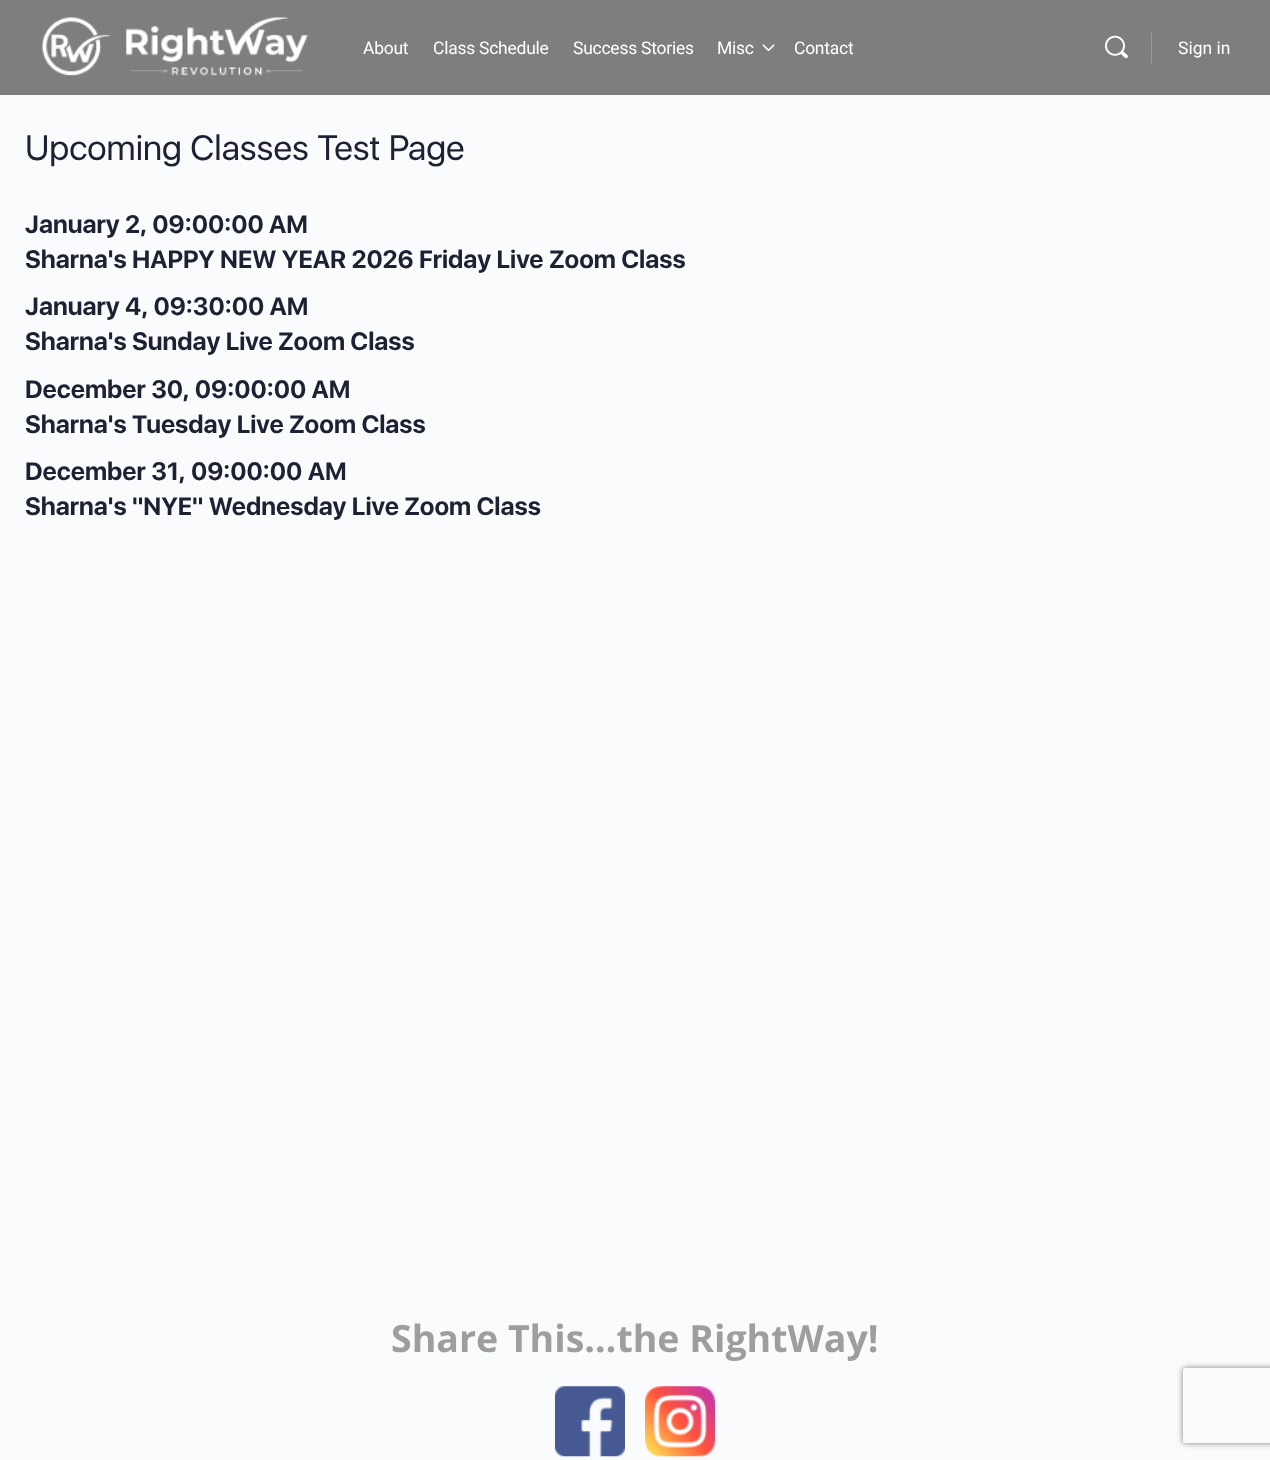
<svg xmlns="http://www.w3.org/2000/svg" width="1270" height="1460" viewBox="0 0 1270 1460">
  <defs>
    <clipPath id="clip1"><path d="M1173 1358H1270V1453H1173ZM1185.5 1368H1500.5C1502 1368 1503 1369 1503 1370.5V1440.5C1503 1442 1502 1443 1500.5 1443H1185.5C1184 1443 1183 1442 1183 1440.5V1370.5C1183 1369 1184 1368 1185.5 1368Z" clip-rule="evenodd"/></clipPath>
  </defs>
  <rect width="100%" height="100%" fill="rgb(250,251,253)"/>
  <rect x="0" y="0" width="1270" height="95" fill="rgb(125,126,126)"/>
  <image x="42" y="17" width="266" height="59" href="pic1.png"/>
  <g font-family="Roboto" font-size="17.5" letter-spacing="-0.25" fill="rgb(255,255,255)">
    <text x="363" y="54">About</text>
    <text x="433" y="54">Class Schedule</text>
    <text x="573" y="54">Success Stories</text>
    <text x="717" y="54">Misc</text>
  </g>
  <image x="762" y="44" width="13" height="8" href="pic2.png"/>
  <text x="794" y="54" font-family="Roboto" font-size="17.5" letter-spacing="-0.25" fill="rgb(255,255,255)">Contact</text>
  <image x="1105" y="35" width="23" height="24" href="pic3.png"/>
  <rect x="1151" y="33" width="1" height="30" fill="rgb(151,152,152)"/>
  <text x="1178" y="54" font-family="Roboto" font-size="17.5" fill="rgb(255,255,255)">Sign in</text>
  <text x="25" y="160" font-family="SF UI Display" font-size="35" fill="rgb(30,33,50)">Upcoming Classes Test Page</text>
  <g font-family="SF UI Display" font-size="25" font-weight="bold" fill="rgb(30,33,50)">
    <text>
      <tspan x="25" y="233">January 2, 09:00:00 AM</tspan>
      <tspan x="25" y="268">Sharna's HAPPY NEW YEAR 2026 Friday Live Zoom Class</tspan>
      <tspan x="25" y="315">January 4, 09:30:00 AM</tspan>
      <tspan x="25" y="350">Sharna's Sunday Live Zoom Class</tspan>
      <tspan x="25" y="398">December 30, 09:00:00 AM</tspan>
      <tspan x="25" y="433">Sharna's Tuesday Live Zoom Class</tspan>
      <tspan x="25" y="480">December 31, 09:00:00 AM</tspan>
      <tspan x="25" y="515">Sharna's "NYE" Wednesday Live Zoom Class</tspan>
    </text>
  </g>
  <text x="391" y="1352" font-family="Open Sans" font-size="37.5" font-weight="bold" fill="rgb(158,158,159)">Share This…the RightWay!</text>
  <image x="555" y="1386" width="70" height="71" href="pic4.png"/>
  <image x="645" y="1386" width="70" height="71" href="pic5.png"/>
  <g clip-path="url(#clip1)">
    <rect x="1183" y="1368" width="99" height="75" rx="2.5" fill="rgb(128,128,128)" filter="blur(3px)"/>
  </g>
</svg>
